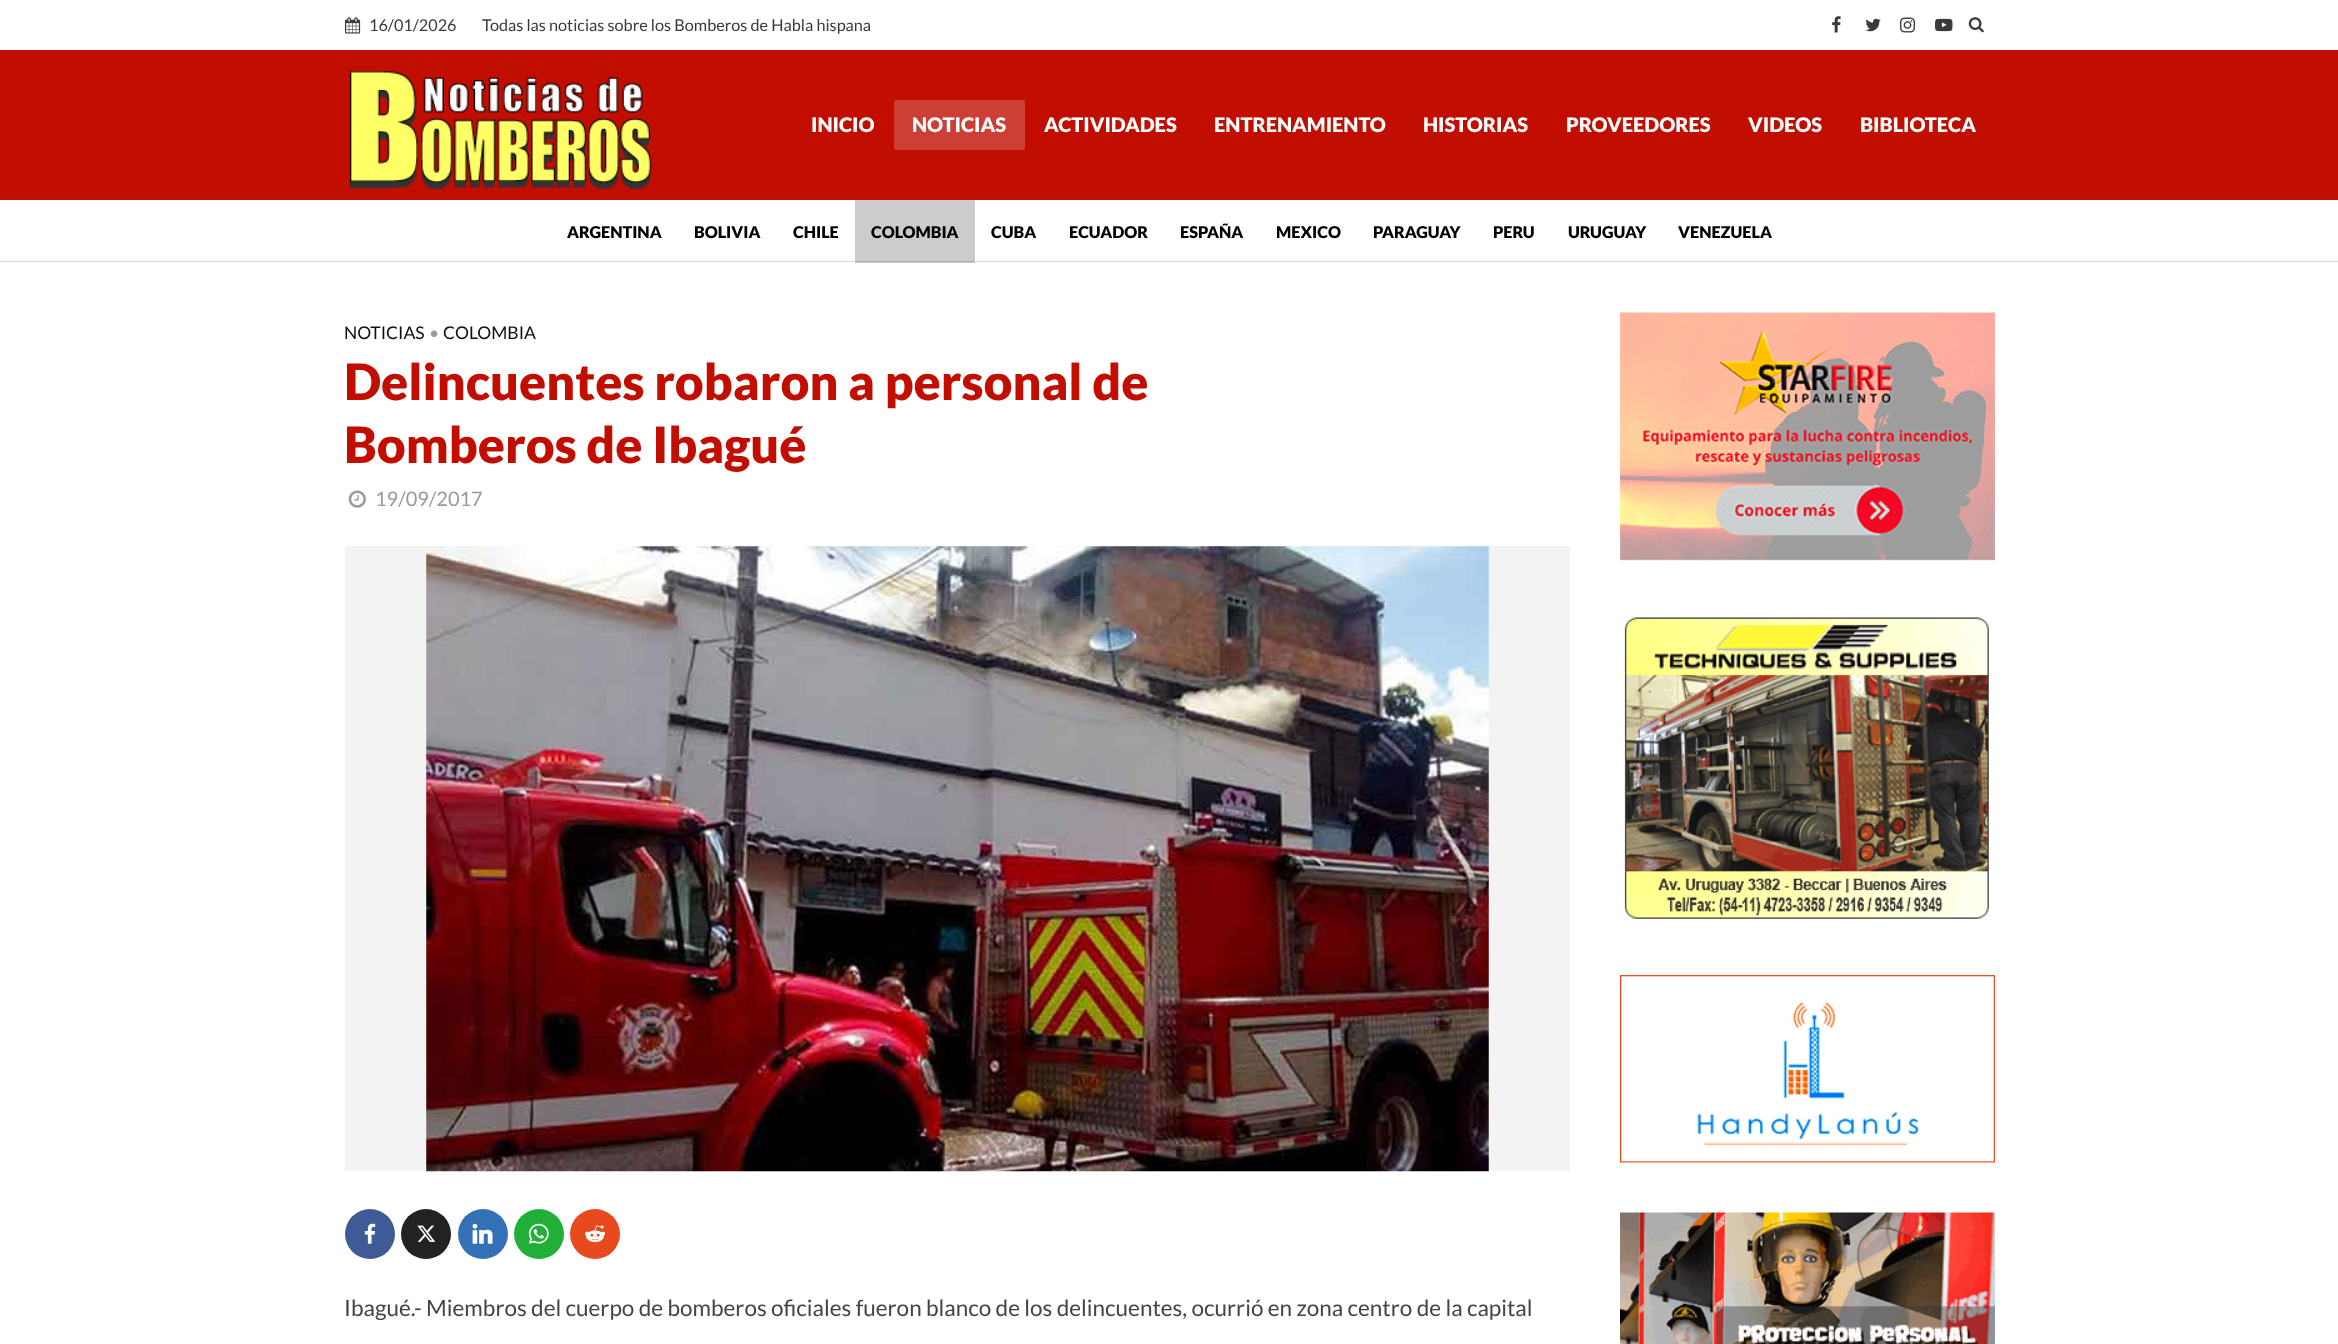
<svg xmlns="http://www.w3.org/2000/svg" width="2338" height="1344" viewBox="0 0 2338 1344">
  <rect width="100%" height="100%" fill="rgb(255,255,255)"/>
  <rect x="855" y="200" width="120" height="63" fill="rgb(204,204,204)"/>
  <image x="345" y="17" width="16" height="17" href="pic1.png"/>
  <g font-family="Lato" font-size="16.25" fill="rgb(58,58,58)">
    <text x="369" y="31">16/01/2026</text>
    <text x="482" y="31">Todas las noticias sobre los Bomberos de Habla hispana</text>
  </g>
  <image x="1832" y="16" width="9" height="17" href="pic2.png"/>
  <image x="1865" y="18" width="16" height="14" href="pic3.png"/>
  <image x="1900" y="17" width="15" height="16" href="pic4.png"/>
  <image x="1935" y="18" width="18" height="14" href="pic5.png"/>
  <image x="1968" y="17" width="16" height="16" href="pic6.png"/>
  <rect x="0" y="50" width="2338" height="150" fill="rgb(193,14,1)"/>
  <image x="349" y="71" width="303" height="118" href="pic7.png"/>
  <text x="811" y="132" font-family="Lato" font-size="20" font-weight="900" fill="rgb(255,255,255)">INICIO</text>
  <rect x="894" y="100" width="131" height="50" rx="2.5" fill="rgb(205,62,52)"/>
  <g font-family="Lato" font-size="20" font-weight="900" fill="rgb(255,255,255)">
    <text x="912" y="132">NOTICIAS</text>
    <text x="1044" y="132">ACTIVIDADES</text>
    <text x="1214" y="132">ENTRENAMIENTO</text>
    <text x="1423" y="132">HISTORIAS</text>
    <text x="1566" y="132">PROVEEDORES</text>
    <text x="1748" y="132">VIDEOS</text>
    <text x="1860" y="132">BIBLIOTECA</text>
  </g>
  <rect x="0" y="261" width="2338" height="1" fill="rgb(217,217,217)"/>
  <rect x="855" y="261" width="120" height="1" fill="rgb(174,174,174)"/>
  <g font-family="Lato" font-size="16.25" font-weight="900" fill="rgb(0,0,0)">
    <text x="567" y="238">ARGENTINA</text>
    <text x="694" y="238">BOLIVIA</text>
    <text x="793" y="238">CHILE</text>
    <text x="871" y="238">COLOMBIA</text>
    <text x="991" y="238">CUBA</text>
    <text x="1069" y="238">ECUADOR</text>
    <text x="1180" y="238">ESPAÑA</text>
    <text x="1276" y="238">MEXICO</text>
    <text x="1373" y="238">PARAGUAY</text>
    <text x="1493" y="238">PERU</text>
    <text x="1568" y="238">URUGUAY</text>
    <text x="1678" y="238">VENEZUELA</text>
  </g>
  <text x="344" y="339" font-family="Lato" font-size="17.5" fill="rgb(14,14,14)">NOTICIAS</text>
  <text x="429" y="339" font-family="Lato" font-size="17.5" fill="rgb(153,153,153)">•</text>
  <text x="443" y="339" font-family="Lato" font-size="17.5" fill="rgb(14,14,14)">COLOMBIA</text>
  <g font-family="Lato" font-size="50" font-weight="900" fill="rgb(193,14,1)">
    <text>
      <tspan x="344" y="400">Delincuentes robaron a personal de</tspan>
      <tspan x="344" y="463">Bomberos de Ibagué</tspan>
    </text>
  </g>
  <image x="348" y="490" width="18" height="18" href="pic8.png"/>
  <text x="375" y="506" font-family="Lato" font-size="20" fill="rgb(153,153,153)">19/09/2017</text>
  <rect x="345" y="546" width="1225" height="625" fill="rgb(243,243,243)"/>
  <image x="426" y="546" width="1063" height="626" href="pic9.png"/>
  <circle cx="370" cy="1234" r="25" fill="rgb(62,91,152)"/>
  <image x="364" y="1223" width="12" height="21" href="pic10.png"/>
  <circle cx="426" cy="1234" r="25" fill="rgb(34,34,34)"/>
  <image x="417" y="1225" width="19" height="17" href="pic11.png"/>
  <circle cx="483" cy="1234" r="25" fill="rgb(51,113,183)"/>
  <image x="472" y="1223" width="21" height="21" href="pic12.png"/>
  <circle cx="539" cy="1234" r="25" fill="rgb(32,176,56)"/>
  <image x="528" y="1223" width="21" height="21" href="pic13.png"/>
  <circle cx="595" cy="1234" r="25" fill="rgb(231,74,30)"/>
  <image x="585" y="1225" width="20" height="18" href="pic14.png"/>
  <text x="344" y="1316" font-family="Lato" font-size="22.5" fill="rgb(68,68,68)">Ibagué.- Miembros del cuerpo de bomberos oficiales fueron blanco de los delincuentes, ocurrió en zona centro de la capital</text>
  <image x="1620" y="312" width="375" height="249" href="pic15.png"/>
  <image x="1620" y="612" width="370" height="310" href="pic16.png"/>
  <image x="1620" y="975" width="375" height="188" href="pic17.png"/>
  <image x="1620" y="1212" width="375" height="132" href="pic18.png"/>
</svg>
